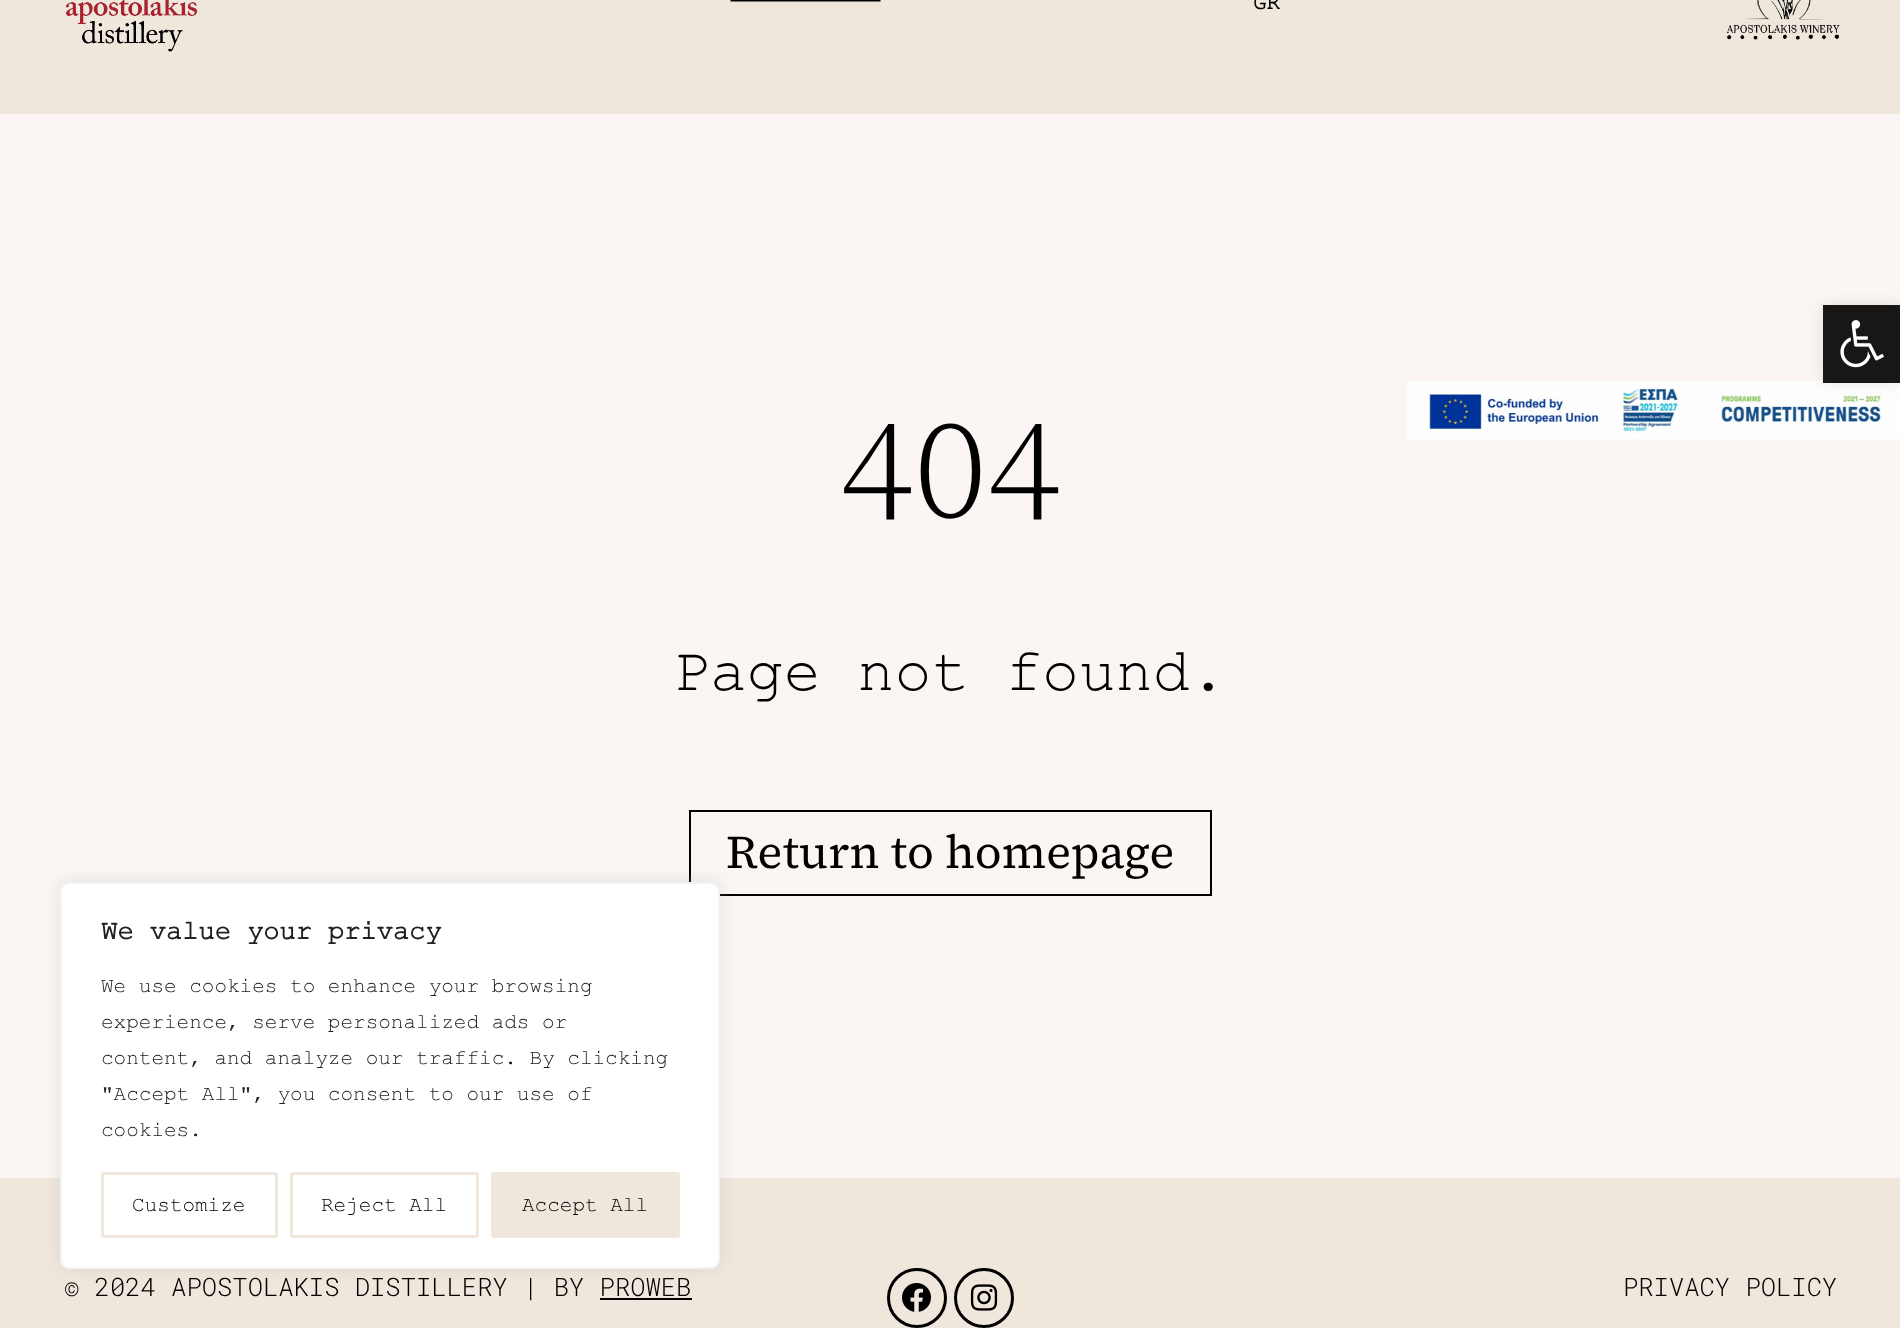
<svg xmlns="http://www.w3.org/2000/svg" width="1900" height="1328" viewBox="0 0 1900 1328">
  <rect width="100%" height="100%" fill="rgb(251,246,244)"/>
  <rect x="0" y="0" width="1900" height="114" fill="rgb(239,231,220)"/>
  <image x="65" y="0" width="133" height="52" href="pic1.png"/>
  <image x="730" y="0" width="151" height="2" href="pic2.png"/>
  <text x="1253" y="9" font-family="Courier New" font-size="22" font-weight="bold" fill="rgb(0,0,0)">GR</text>
  <image x="1726" y="0" width="114" height="40" href="pic3.png"/>
  <image x="1407" y="381" width="493" height="59" href="pic7.png"/>
  <rect x="1823" y="305" width="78" height="78" fill="rgba(0,0,0,0.1)" filter="blur(7.5px)"/>
  <rect x="1823" y="305" width="77" height="78" fill="rgb(25,23,21)"/>
  <image x="1840" y="320" width="44" height="48" href="pic4.png"/>
  <text x="840" y="517" font-family="'Source Serif 4'" font-size="141" font-weight="300" fill="rgb(0,0,0)">404</text>
  <text x="673" y="690" font-family="Courier New" font-size="61.5" fill="rgb(0,0,0)">Page not found.</text>
  <rect x="690" y="811" width="521" height="84" fill="none" stroke="rgb(0,0,0)" stroke-width="2"/>
  <text x="726" y="868" font-family="'Source Serif 4'" font-size="46.5" fill="rgb(0,0,0)">Return to homepage</text>
  <rect x="0" y="1178" width="1900" height="150" fill="rgb(239,231,220)"/>
  <rect x="60" y="881" width="660" height="387" rx="9" fill="rgba(172,171,171,0.3)" filter="blur(7.5px)"/>
  <rect x="61" y="883" width="658" height="385" rx="8" fill="rgb(255,255,255)" stroke="rgb(244,244,244)" stroke-width="2"/>
  <text x="101" y="939" font-family="Courier New" font-size="27" font-weight="bold" fill="rgb(33,33,33)">We value your privacy</text>
  <g font-family="Courier New" font-size="21" fill="rgb(33,33,33)">
    <text>
      <tspan x="101" y="992">We use cookies to enhance your browsing</tspan>
      <tspan x="101" y="1028">experience, serve personalized ads or</tspan>
      <tspan x="101" y="1064">content, and analyze our traffic. By clicking</tspan>
      <tspan x="101" y="1100">"Accept All", you consent to our use of</tspan>
      <tspan x="101" y="1136">cookies.</tspan>
    </text>
  </g>
  <rect x="102.5" y="1173.5" width="174" height="63" rx="1.5" fill="none" stroke="rgb(239,231,220)" stroke-width="3"/>
  <text x="132" y="1211" font-family="Courier New" font-size="21" fill="rgb(0,0,0)">Customize</text>
  <rect x="291.5" y="1173.5" width="186" height="63" rx="1.5" fill="none" stroke="rgb(239,231,220)" stroke-width="3"/>
  <text x="321" y="1211" font-family="Courier New" font-size="21" fill="rgb(0,0,0)">Reject All</text>
  <rect x="492.5" y="1173.5" width="186" height="63" rx="1.5" fill="rgb(239,231,220)" stroke="rgb(239,231,220)" stroke-width="3"/>
  <text x="522" y="1211" font-family="Courier New" font-size="21" fill="rgb(0,0,0)">Accept All</text>
  <text x="64" y="1296" font-family="Roboto Mono" font-size="25.5" font-weight="300" fill="rgb(0,0,0)">© 2024 APOSTOLAKIS DISTILLERY | BY PROWEB</text>
  <rect x="600" y="1298" width="92" height="2" fill="rgb(0,0,0)"/>
  <circle cx="917" cy="1298" r="28.5" fill="none" stroke="rgb(0,0,0)" stroke-width="3"/>
  <image x="902" y="1283" width="29" height="29" href="pic5.png"/>
  <circle cx="984" cy="1298" r="28.5" fill="none" stroke="rgb(0,0,0)" stroke-width="3"/>
  <image x="970" y="1284" width="28" height="27" href="pic6.png"/>
  <text x="1623" y="1296" font-family="Roboto Mono" font-size="25.5" font-weight="300" fill="rgb(0,0,0)">PRIVACY POLICY</text>
</svg>
